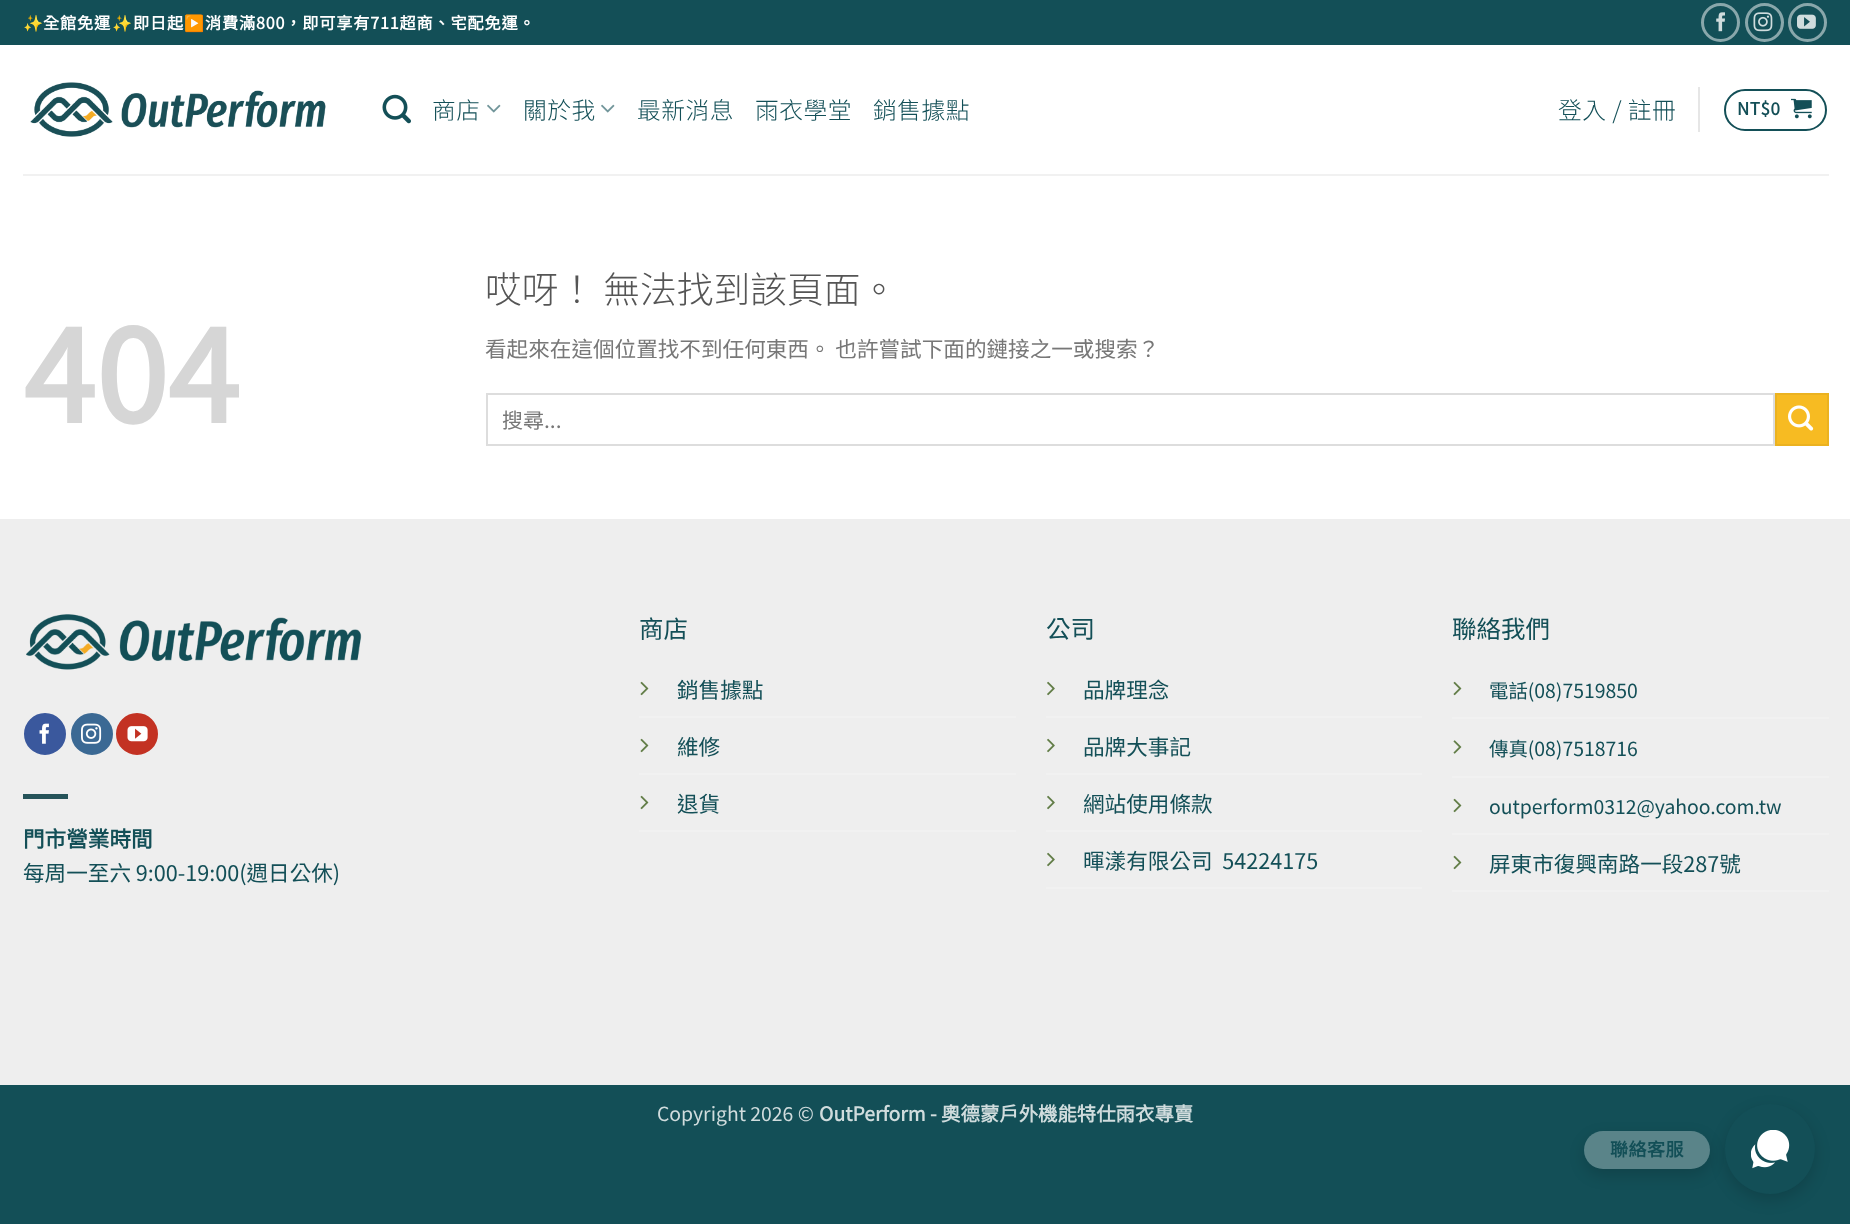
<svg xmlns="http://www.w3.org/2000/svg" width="1850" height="1224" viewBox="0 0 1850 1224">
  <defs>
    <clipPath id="clip1"><path d="M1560 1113H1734V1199H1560ZM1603 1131H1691C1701.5 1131 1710 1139.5 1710 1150C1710 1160.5 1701.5 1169 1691 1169H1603C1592.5 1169 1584 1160.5 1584 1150C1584 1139.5 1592.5 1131 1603 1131Z" clip-rule="evenodd"/></clipPath>
  </defs>
  <rect width="100%" height="100%" fill="rgb(19,79,87)"/>
  <rect x="0" y="45" width="1850" height="474" fill="rgb(255,255,255)"/>
  <text x="23" y="29" font-family="Noto Color Emoji" font-size="16.2" font-weight="bold" letter-spacing="0.8" fill="rgb(255,255,255)">✨</text>
  <text x="43" y="29" font-family="Noto Sans TC" font-size="16.2" font-weight="bold" letter-spacing="0.8" fill="rgb(255,255,255)">全館免運</text>
  <text x="112" y="29" font-family="Noto Color Emoji" font-size="16.2" font-weight="bold" letter-spacing="0.8" fill="rgb(255,255,255)">✨</text>
  <text x="133" y="29" font-family="Noto Sans TC" font-size="16.2" font-weight="bold" letter-spacing="0.8" fill="rgb(255,255,255)">即日起</text>
  <text x="184" y="29" font-family="Noto Color Emoji" font-size="16.2" font-weight="bold" letter-spacing="0.8" fill="rgb(255,255,255)">▶</text>
  <text x="205" y="29" font-family="Noto Sans TC" font-size="16.2" font-weight="bold" letter-spacing="0.8" fill="rgb(255,255,255)">消費滿800，即可享有711超商、宅配免運。</text>
  <circle cx="1720.5" cy="22.5" r="18" fill="none" stroke="rgb(137,167,171)" stroke-width="3"/>
  <image x="1716" y="12" width="9" height="20" href="pic1.png"/>
  <circle cx="1764.5" cy="22.5" r="18" fill="none" stroke="rgb(137,167,171)" stroke-width="3"/>
  <image x="1753" y="12" width="20" height="20" href="pic2.png"/>
  <circle cx="1807.5" cy="22.5" r="18" fill="none" stroke="rgb(137,167,171)" stroke-width="3"/>
  <image x="1797" y="14" width="19" height="15" href="pic3.png"/>
  <image x="30" y="82" width="296" height="55" href="pic4.png"/>
  <image x="382" y="94" width="29" height="30" href="pic5.png"/>
  <text x="432" y="119" font-family="Noto Sans TC" font-size="23.75" font-weight="300" letter-spacing="0.5" fill="rgb(19,79,87)">商店</text>
  <image x="487" y="104" width="14" height="9" href="pic6.png"/>
  <text x="523" y="119" font-family="Noto Sans TC" font-size="23.75" font-weight="300" letter-spacing="0.5" fill="rgb(19,79,87)">關於我</text>
  <image x="601" y="104" width="14" height="9" href="pic6.png"/>
  <g font-family="Noto Sans TC" font-size="23.75" font-weight="300" letter-spacing="0.5" fill="rgb(19,79,87)">
    <text x="637" y="119">最新消息</text>
    <text x="755" y="119">雨衣學堂</text>
    <text x="873" y="119">銷售據點</text>
    <text x="1558" y="119">登入 / 註冊</text>
  </g>
  <rect x="1698" y="87" width="2" height="45" fill="rgb(230,230,230)"/>
  <rect x="1725" y="90" width="101" height="40" rx="20" fill="none" stroke="rgb(19,79,87)" stroke-width="2"/>
  <text x="1737" y="115" font-family="Noto Sans TC" font-size="17" font-weight="bold" letter-spacing="0.5" fill="rgb(19,79,87)">NT$0</text>
  <image x="1791" y="98" width="21" height="21" href="pic7.png"/>
  <rect x="23" y="174" width="1806" height="2" fill="rgb(241,241,241)"/>
  <text x="23" y="423" font-family="Noto Sans TC" font-size="130" font-weight="bold" fill="rgb(214,214,214)">404</text>
  <text x="485" y="303" font-family="Noto Sans TC" font-size="36.75" font-weight="300" fill="rgb(85,85,85)">哎呀！ 無法找到該頁面。</text>
  <text x="485" y="357" font-family="Noto Sans TC" font-size="21.6" fill="rgb(119,119,119)">看起來在這個位置找不到任何東西。 也許嘗試下面的鏈接之一或搜索？</text>
  <rect x="487" y="394" width="1287" height="51" fill="none" stroke="rgb(221,221,221)" stroke-width="2"/>
  <text x="502" y="428" font-family="Noto Sans TC" font-size="21" fill="rgb(119,119,119)">搜尋...</text>
  <rect x="1776" y="394" width="52" height="51" fill="rgb(247,187,34)" stroke="rgb(235,178,32)" stroke-width="2"/>
  <image x="1788" y="405" width="26" height="26" href="pic8.png"/>
  <rect x="0" y="519" width="1850" height="566" fill="rgb(238,238,238)"/>
  <image x="26" y="614" width="336" height="56" href="pic9.png"/>
  <circle cx="45" cy="734" r="20" fill="rgb(58,88,157)" stroke="rgb(58,88,157)" stroke-width="2"/>
  <image x="39" y="723" width="10" height="21" href="pic10.png"/>
  <circle cx="92" cy="734" r="20" fill="rgb(59,105,148)" stroke="rgb(59,105,148)" stroke-width="2"/>
  <image x="81" y="723" width="21" height="21" href="pic11.png"/>
  <circle cx="137" cy="734" r="20" fill="rgb(195,50,35)" stroke="rgb(195,50,35)" stroke-width="2"/>
  <image x="127" y="726" width="21" height="16" href="pic12.png"/>
  <rect x="23" y="794" width="45" height="5" fill="rgb(37,83,89)"/>
  <text x="23" y="847" font-family="Noto Sans TC" font-size="21.6" font-weight="bold" fill="rgb(19,79,87)">門市營業時間</text>
  <text x="23" y="881" font-family="Noto Sans TC" font-size="21.6" fill="rgb(19,79,87)">每周一至六 9:00-19:00(週日公休)</text>
  <text x="639" y="638" font-family="Noto Sans TC" font-size="24.5" fill="rgb(19,79,87)">商店</text>
  <rect x="639" y="716" width="377" height="2" fill="rgb(241,241,241)"/>
  <image x="640" y="681" width="9" height="15" href="pic13.png"/>
  <text x="677" y="698" font-family="Noto Sans TC" font-size="21.6" fill="rgb(19,79,87)">銷售據點</text>
  <rect x="639" y="773" width="377" height="2" fill="rgb(241,241,241)"/>
  <image x="640" y="738" width="9" height="15" href="pic13.png"/>
  <text x="677" y="755" font-family="Noto Sans TC" font-size="21.6" fill="rgb(19,79,87)">維修</text>
  <rect x="639" y="830" width="377" height="2" fill="rgb(241,241,241)"/>
  <image x="640" y="795" width="9" height="15" href="pic13.png"/>
  <text x="677" y="812" font-family="Noto Sans TC" font-size="21.6" fill="rgb(19,79,87)">退貨</text>
  <text x="1046" y="638" font-family="Noto Sans TC" font-size="24.5" fill="rgb(19,79,87)">公司</text>
  <rect x="1046" y="716" width="376" height="2" fill="rgb(241,241,241)"/>
  <image x="1047" y="681" width="8" height="15" href="pic14.png"/>
  <text x="1083" y="698" font-family="Noto Sans TC" font-size="21.6" fill="rgb(19,79,87)">品牌理念</text>
  <rect x="1046" y="773" width="376" height="2" fill="rgb(241,241,241)"/>
  <image x="1047" y="738" width="8" height="15" href="pic14.png"/>
  <text x="1083" y="755" font-family="Noto Sans TC" font-size="21.6" fill="rgb(19,79,87)">品牌大事記</text>
  <rect x="1046" y="830" width="376" height="2" fill="rgb(241,241,241)"/>
  <image x="1047" y="795" width="8" height="15" href="pic14.png"/>
  <text x="1083" y="812" font-family="Noto Sans TC" font-size="21.6" fill="rgb(19,79,87)">網站使用條款</text>
  <rect x="1046" y="887" width="376" height="2" fill="rgb(241,241,241)"/>
  <image x="1047" y="852" width="8" height="15" href="pic14.png"/>
  <text x="1083" y="869" font-family="Noto Sans TC" font-size="21.6" fill="rgb(19,79,87)" xml:space="preserve">暉漾有限公司  54224175</text>
  <text x="1452" y="638" font-family="Noto Sans TC" font-size="24.5" fill="rgb(19,79,87)">聯絡我們</text>
  <rect x="1452" y="717" width="377" height="2" fill="rgb(241,241,241)"/>
  <image x="1453" y="681" width="9" height="15" href="pic13.png"/>
  <text x="1489" y="698" font-family="Noto Sans TC" font-size="19.4" fill="rgb(19,79,87)">電話(08)7519850</text>
  <rect x="1452" y="776" width="377" height="2" fill="rgb(241,241,241)"/>
  <image x="1453" y="740" width="9" height="14" href="pic15.png"/>
  <text x="1489" y="756" font-family="Noto Sans TC" font-size="19.4" fill="rgb(19,79,87)">傳真(08)7518716</text>
  <rect x="1452" y="833" width="377" height="2" fill="rgb(241,241,241)"/>
  <image x="1453" y="798" width="9" height="15" href="pic13.png"/>
  <text x="1489" y="814" font-family="Noto Sans TC" font-size="19.4" fill="rgb(19,79,87)">outperform0312@yahoo.com.tw</text>
  <rect x="1452" y="890" width="377" height="2" fill="rgb(241,241,241)"/>
  <image x="1453" y="855" width="9" height="15" href="pic13.png"/>
  <text x="1489" y="872" font-family="Noto Sans TC" font-size="21.6" fill="rgb(19,79,87)">屏東市復興南路一段287號</text>
  <text x="657" y="1121" font-family="Noto Sans TC" font-size="19.4" fill="rgb(208,220,221)">Copyright 2026 ©</text>
  <text x="819" y="1121" font-family="Noto Sans TC" font-size="19.4" font-weight="bold" fill="rgb(208,220,221)">OutPerform - 奧德蒙戶外機能特仕雨衣專賣</text>
  <rect x="1725" y="1110" width="90" height="90" rx="45" fill="rgba(0,0,0,0.15)" filter="blur(7.5px)"/>
  <circle cx="1770" cy="1149" r="45" fill="rgb(19,79,87)"/>
  <g clip-path="url(#clip1)">
    <rect x="1584" y="1137" width="126" height="38" rx="19" fill="rgba(0,0,0,0.15)" filter="blur(7.5px)"/>
  </g>
  <rect x="1584" y="1131" width="126" height="38" rx="19" fill="rgba(255,255,255,0.3)"/>
  <text x="1610" y="1156" font-family="Noto Sans TC" font-size="18" font-weight="bold" letter-spacing="0.5" fill="rgb(19,79,87)">聯絡客服</text>
  <image x="1751" y="1130" width="39" height="39" href="pic16.png"/>
</svg>
